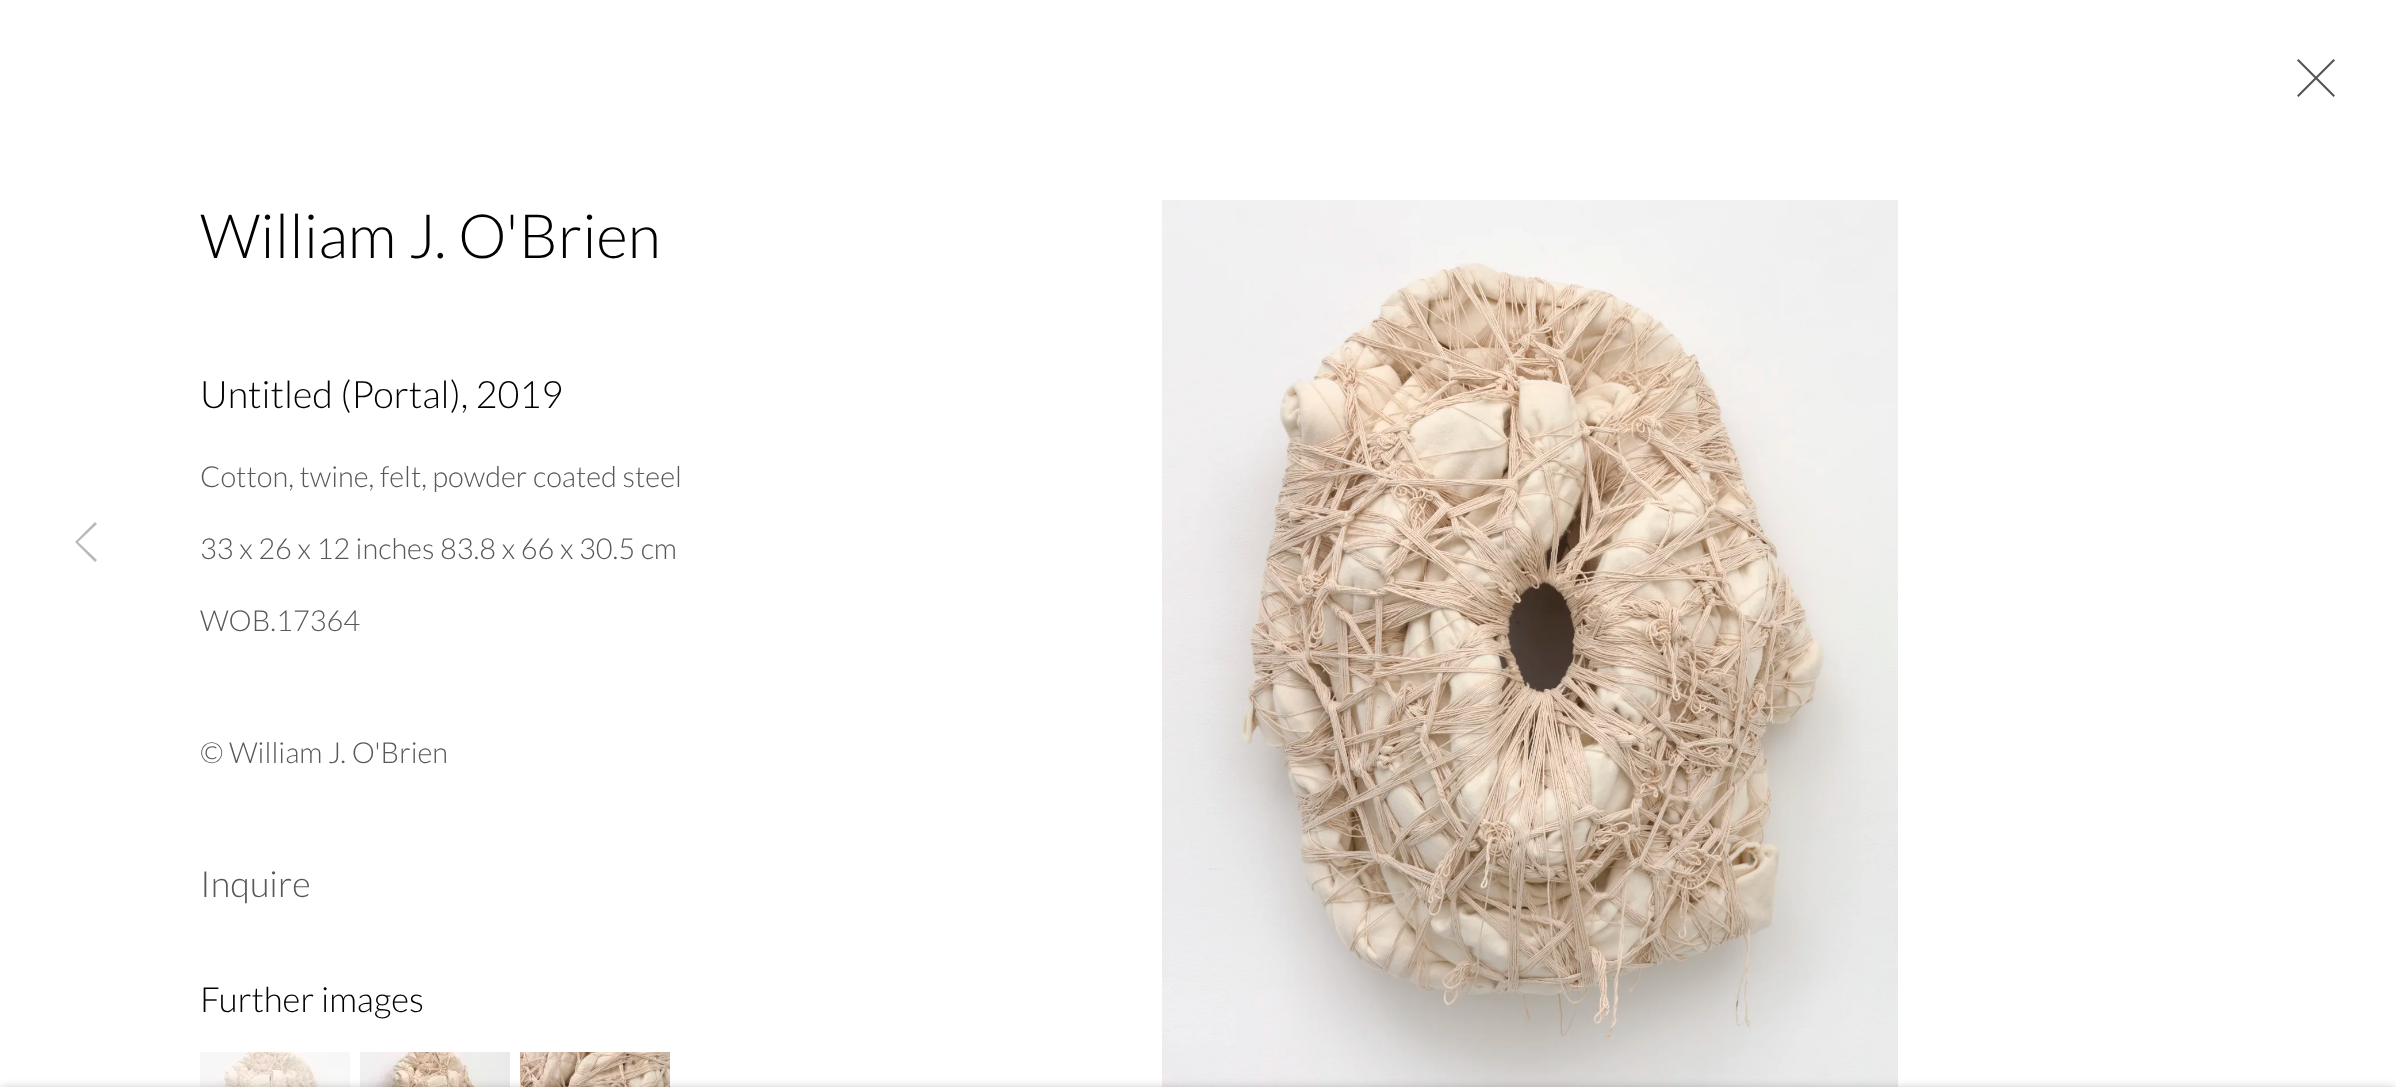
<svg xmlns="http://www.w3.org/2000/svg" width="2396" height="1087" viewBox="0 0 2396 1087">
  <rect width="100%" height="100%" fill="rgb(255,255,255)"/>
  <path d="M2335 60.5L2333.5 59L2316 76.5L2298.5 59L2297 60.5L2314.5 78L2297 95.5L2298.5 97L2316 79.5L2333.5 97L2335 95.5L2317.5 78Z" fill="rgb(85,85,85)"/>
  <path d="M77 544L95 562L97 560L78 542L97 524L95 522L75 542Z" fill="rgb(185,185,185)"/>
  <text x="200" y="258" font-family="Lato" font-size="61" font-weight="300" fill="rgb(1,1,1)">William J. O'Brien</text>
  <text x="200" y="408" font-family="Lato" font-size="37.75" font-weight="300" fill="rgb(1,1,1)">Untitled (Portal), 2019</text>
  <g font-family="Lato" font-size="29" font-weight="300" fill="rgb(88,88,88)">
    <text x="200" y="487">Cotton, twine, felt, powder coated steel</text>
    <text x="200" y="559">33 x 26 x 12 inches 83.8 x 66 x 30.5 cm</text>
    <text x="200" y="631">WOB.17364</text>
    <text x="200" y="763">© William J. O'Brien</text>
  </g>
  <text x="200" y="897" font-family="Lato" font-size="36" font-weight="300" fill="rgb(88,88,88)">Inquire</text>
  <text x="200" y="1012" font-family="Lato" font-size="34.75" font-weight="300" fill="rgb(1,1,1)">Further images</text>
  <image x="200" y="1052" width="150" height="35" href="pic1.png"/>
  <image x="360" y="1052" width="150" height="35" href="pic2.png"/>
  <image x="520" y="1052" width="150" height="35" href="pic3.png"/>
  <image x="1162" y="200" width="736" height="887" href="pic4.png"/>
  <rect x="0" y="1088" width="2396" height="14" fill="rgba(0,0,0,0.23)" filter="blur(5px)"/>
</svg>
